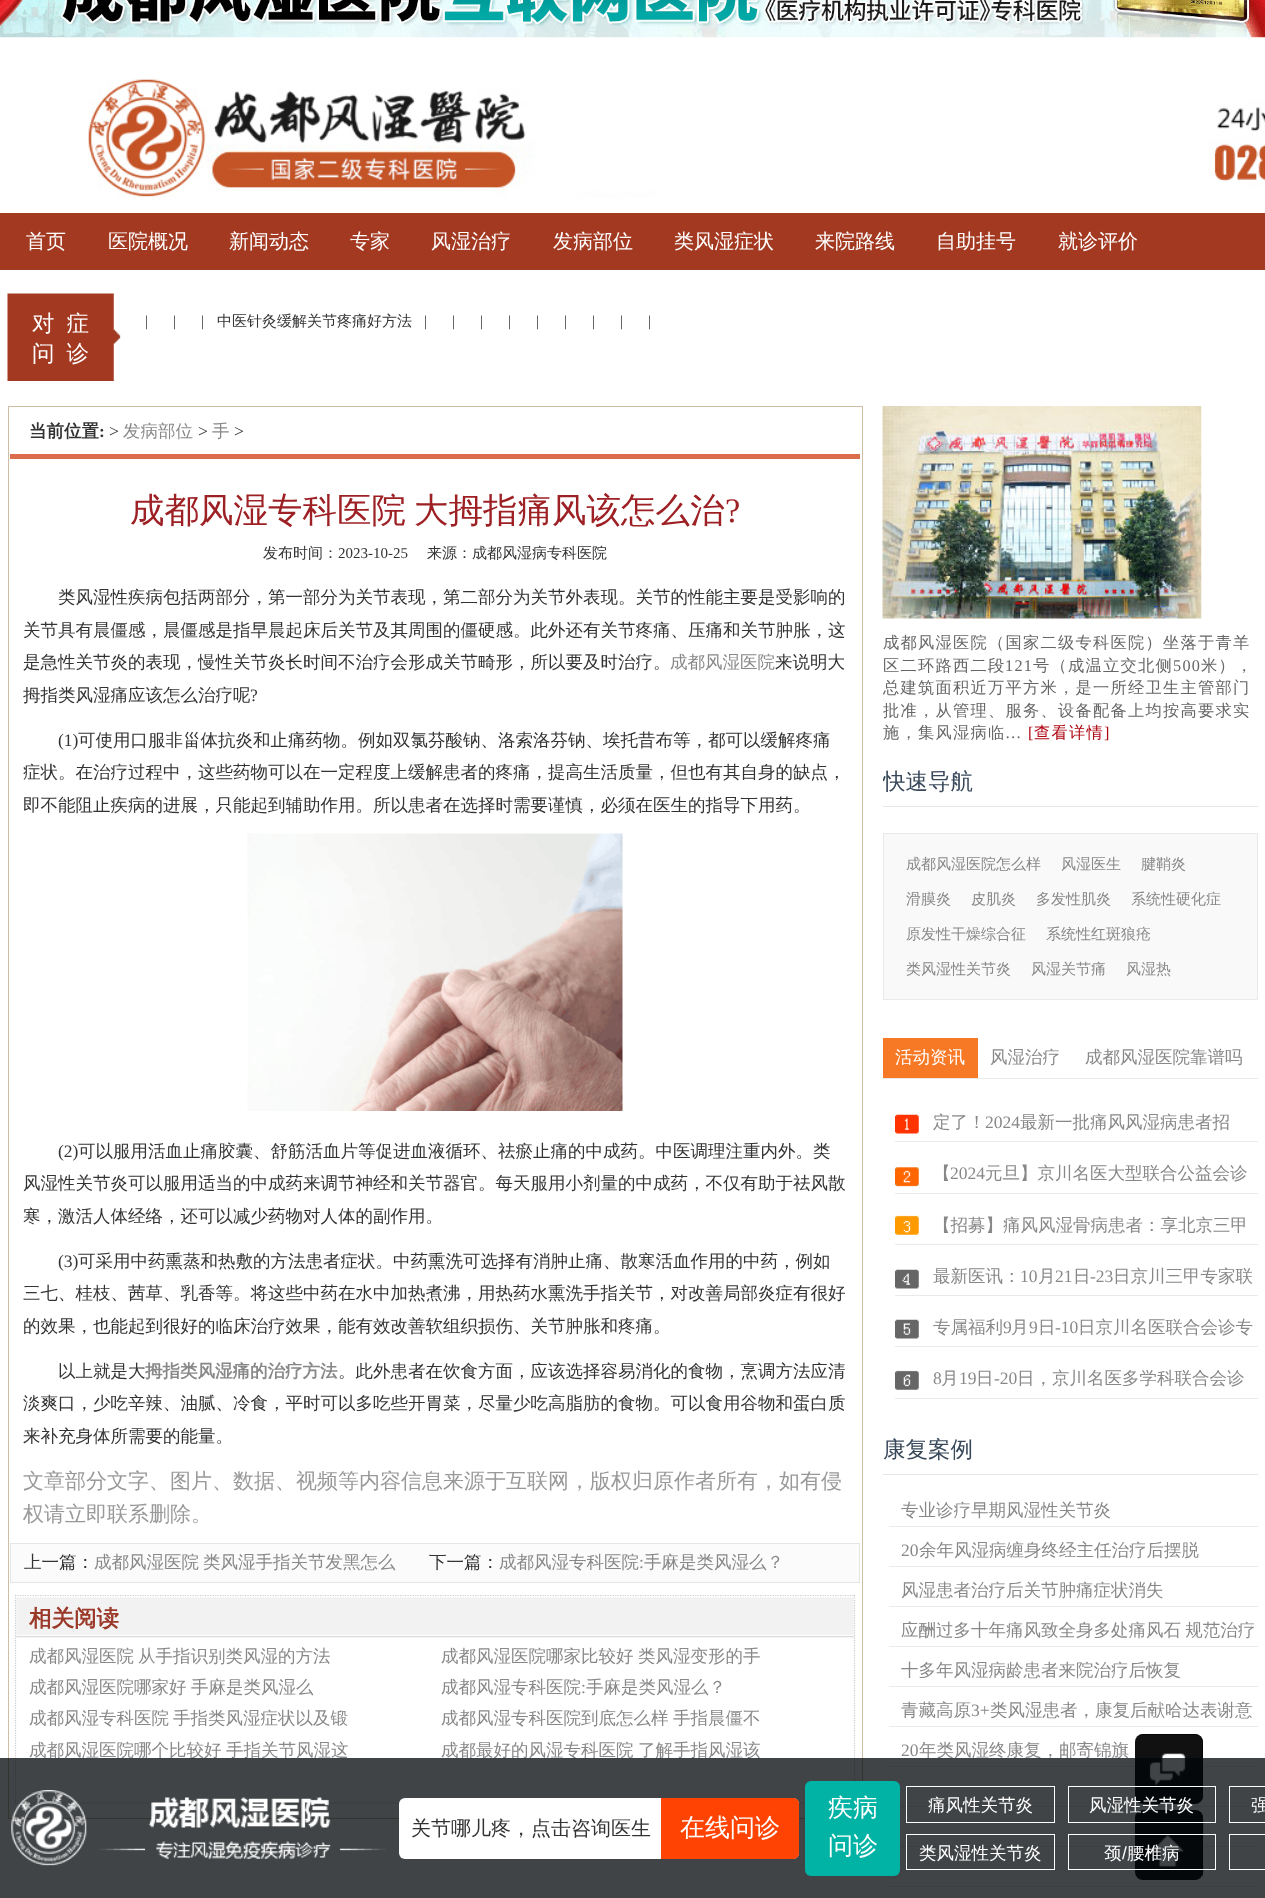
<svg xmlns="http://www.w3.org/2000/svg" width="1265" height="1898" viewBox="0 0 1265 1898">
  <defs>
    <clipPath id="clip1"><rect x="883" y="756" width="375" height="244"/></clipPath>
  </defs>
  <rect width="100%" height="100%" fill="rgb(255,255,255)"/>
  <image x="0" y="0" width="1265" height="38" href="pic1.png"/>
  <image x="88" y="79" width="1177" height="119" href="pic2.png"/>
  <rect x="0" y="213" width="1265" height="57" fill="rgb(163,57,33)"/>
  <g font-family="WenQuanYi Zen Hei" font-size="20" font-weight="500" fill="rgb(255,255,255)">
    <text x="26" y="248">首页</text>
    <text x="108" y="248">医院概况</text>
    <text x="229" y="248">新闻动态</text>
    <text x="350" y="248">专家</text>
    <text x="431" y="248">风湿治疗</text>
    <text x="553" y="248">发病部位</text>
    <text x="674" y="248">类风湿症状</text>
    <text x="815" y="248">来院路线</text>
    <text x="936" y="248">自助挂号</text>
    <text x="1058" y="248">就诊评价</text>
  </g>
  <image x="7" y="293" width="114" height="88" href="pic3.png"/>
  <g font-family="WenQuanYi Zen Hei" font-size="22.5" font-weight="500" letter-spacing="12" fill="rgb(255,255,255)">
    <text>
      <tspan x="32" y="331">对症</tspan>
      <tspan x="32" y="361">问诊</tspan>
    </text>
  </g>
  <g font-family="Liberation Serif" font-size="15" fill="rgb(51,51,51)">
    <text x="145" y="326">|</text>
    <text x="173" y="326">|</text>
    <text x="201" y="326">|</text>
  </g>
  <text x="217" y="326" font-family="WenQuanYi Zen Hei" font-size="15" font-weight="500" fill="rgb(51,51,51)">中医针灸缓解关节疼痛好方法</text>
  <g font-family="Liberation Serif" font-size="15" fill="rgb(51,51,51)">
    <text x="424" y="326">|</text>
    <text x="452" y="326">|</text>
    <text x="480" y="326">|</text>
    <text x="508" y="326">|</text>
    <text x="536" y="326">|</text>
    <text x="564" y="326">|</text>
    <text x="592" y="326">|</text>
    <text x="620" y="326">|</text>
    <text x="648" y="326">|</text>
  </g>
  <rect x="8.5" y="406.5" width="854" height="1412" fill="none" stroke="rgb(206,190,164)"/>
  <rect x="10" y="454" width="850" height="5" fill="rgb(219,109,76)"/>
  <text x="29" y="437" font-family="WenQuanYi Zen Hei" font-size="17.5" font-weight="bold" fill="rgb(51,51,51)">当前位置</text>
  <text x="99" y="437" font-family="Liberation Serif" font-size="17.5" font-weight="bold" fill="rgb(51,51,51)">:</text>
  <text x="109" y="437" font-family="Liberation Serif" font-size="17.5" fill="rgb(51,51,51)">&gt;</text>
  <text x="123" y="437" font-family="WenQuanYi Zen Hei" font-size="17.5" font-weight="500" fill="rgb(136,136,136)">发病部位</text>
  <text x="198" y="437" font-family="Liberation Serif" font-size="17.5" fill="rgb(51,51,51)">&gt;</text>
  <text x="212" y="437" font-family="WenQuanYi Zen Hei" font-size="17.5" font-weight="500" fill="rgb(136,136,136)">手</text>
  <text x="234" y="437" font-family="Liberation Serif" font-size="17.5" fill="rgb(51,51,51)">&gt;</text>
  <g font-family="WenQuanYi Zen Hei" font-size="34.5" font-weight="500" fill="rgb(157,32,36)">
    <text x="130" y="522">成都风湿专科医院</text>
    <text x="414" y="522">大拇指痛风该怎么治</text>
  </g>
  <text x="725" y="522" font-family="Liberation Serif" font-size="34.5" fill="rgb(157,32,36)">?</text>
  <text x="263" y="558" font-family="WenQuanYi Zen Hei" font-size="15" font-weight="500" fill="rgb(51,51,51)">发布时间：</text>
  <text x="338" y="558" font-family="Liberation Serif" font-size="15" fill="rgb(51,51,51)">2023-10-25</text>
  <text x="427" y="558" font-family="WenQuanYi Zen Hei" font-size="15" font-weight="500" fill="rgb(51,51,51)">来源：成都风湿病专科医院</text>
  <g font-family="WenQuanYi Zen Hei" font-size="17.5" font-weight="500" fill="rgb(51,51,51)">
    <text x="58" y="603">类风湿性疾病包括两部分，第一部分为关节表现，第二部分为关节外表现。关节的性能主要是受影响的</text>
    <text>
      <tspan x="23" y="636">关节具有晨僵感，晨僵感是指早晨起床后关节及其周围的僵硬感。此外还有关节疼痛、压痛和关节肿胀，这</tspan>
      <tspan x="23" y="668">是急性关节炎的表现，慢性关节炎长时间不治疗会形成关节畸形，所以要及时治疗。</tspan>
    </text>
  </g>
  <text x="670" y="668" font-family="WenQuanYi Zen Hei" font-size="17.5" font-weight="500" fill="rgb(136,136,136)">成都风湿医院</text>
  <g font-family="WenQuanYi Zen Hei" font-size="17.5" font-weight="500" fill="rgb(51,51,51)">
    <text x="775" y="668">来说明大</text>
    <text x="23" y="701">拇指类风湿痛应该怎么治疗呢</text>
  </g>
  <g font-family="Liberation Serif" font-size="17.5" fill="rgb(51,51,51)">
    <text x="250" y="701">?</text>
    <text x="58" y="746">(1)</text>
  </g>
  <g font-family="WenQuanYi Zen Hei" font-size="17.5" font-weight="500" fill="rgb(51,51,51)">
    <text x="78" y="746">可使用口服非甾体抗炎和止痛药物。例如双氯芬酸钠、洛索洛芬钠、埃托昔布等，都可以缓解疼痛</text>
    <text>
      <tspan x="23" y="778">症状。在治疗过程中，这些药物可以在一定程度上缓解患者的疼痛，提高生活质量，但也有其自身的缺点，</tspan>
      <tspan x="23" y="811">即不能阻止疾病的进展，只能起到辅助作用。所以患者在选择时需要谨慎，必须在医生的指导下用药。</tspan>
    </text>
  </g>
  <image x="247" y="833" width="376" height="278" href="pic4.png"/>
  <text x="58" y="1157" font-family="Liberation Serif" font-size="17.5" fill="rgb(51,51,51)">(2)</text>
  <g font-family="WenQuanYi Zen Hei" font-size="17.5" font-weight="500" fill="rgb(51,51,51)">
    <text x="78" y="1157">可以服用活血止痛胶囊、舒筋活血片等促进血液循环、祛瘀止痛的中成药。中医调理注重内外。类</text>
    <text>
      <tspan x="23" y="1189">风湿性关节炎可以服用适当的中成药来调节神经和关节器官。每天服用小剂量的中成药，不仅有助于祛风散</tspan>
      <tspan x="23" y="1222">寒，激活人体经络，还可以减少药物对人体的副作用。</tspan>
    </text>
  </g>
  <text x="58" y="1267" font-family="Liberation Serif" font-size="17.5" fill="rgb(51,51,51)">(3)</text>
  <g font-family="WenQuanYi Zen Hei" font-size="17.5" font-weight="500" fill="rgb(51,51,51)">
    <text x="78" y="1267">可采用中药熏蒸和热敷的方法患者症状。中药熏洗可选择有消肿止痛、散寒活血作用的中药，例如</text>
    <text>
      <tspan x="23" y="1299">三七、桂枝、茜草、乳香等。将这些中药在水中加热煮沸，用热药水熏洗手指关节，对改善局部炎症有很好</tspan>
      <tspan x="23" y="1332">的效果，也能起到很好的临床治疗效果，能有效改善软组织损伤、关节肿胀和疼痛。</tspan>
    </text>
    <text x="58" y="1377">以上就是大</text>
  </g>
  <text x="145" y="1377" font-family="WenQuanYi Zen Hei" font-size="17.5" font-weight="bold" fill="rgb(136,136,136)">拇指类风湿痛的治疗方法</text>
  <g font-family="WenQuanYi Zen Hei" font-size="17.5" font-weight="500" fill="rgb(51,51,51)">
    <text x="338" y="1377">。此外患者在饮食方面，应该选择容易消化的食物，烹调方法应清</text>
    <text>
      <tspan x="23" y="1409">淡爽口，少吃辛辣、油腻、冷食，平时可以多吃些开胃菜，尽量少吃高脂肪的食物。可以食用谷物和蛋白质</tspan>
      <tspan x="23" y="1442">来补充身体所需要的能量。</tspan>
    </text>
  </g>
  <g font-family="WenQuanYi Zen Hei" font-size="21" font-weight="500" fill="rgb(153,153,153)">
    <text>
      <tspan x="23" y="1488">文章部分文字、图片、数据、视频等内容信息来源于互联网，版权归原作者所有，如有侵</tspan>
      <tspan x="23" y="1521">权请立即联系删除。</tspan>
    </text>
  </g>
  <rect x="10.5" y="1543.5" width="849" height="39" fill="rgb(251,251,251)" stroke="rgb(229,229,229)"/>
  <text x="24" y="1568" font-family="WenQuanYi Zen Hei" font-size="17.5" font-weight="500" fill="rgb(51,51,51)">上一篇：</text>
  <g font-family="WenQuanYi Zen Hei" font-size="17.5" font-weight="500" fill="rgb(136,136,136)">
    <text x="94" y="1568">成都风湿医院</text>
    <text x="203" y="1568">类风湿手指关节发黑怎么</text>
  </g>
  <text x="429" y="1568" font-family="WenQuanYi Zen Hei" font-size="17.5" font-weight="500" fill="rgb(51,51,51)">下一篇：</text>
  <text x="499" y="1568" font-family="WenQuanYi Zen Hei" font-size="17.5" font-weight="500" fill="rgb(136,136,136)">成都风湿专科医院</text>
  <text x="639" y="1568" font-family="Liberation Serif" font-size="17.5" fill="rgb(136,136,136)">:</text>
  <text x="644" y="1568" font-family="WenQuanYi Zen Hei" font-size="17.5" font-weight="500" fill="rgb(136,136,136)">手麻是类风湿么？</text>
  <path d="M15 1595.5H855" fill="none" stroke="rgb(204,204,204)" stroke-width="1.2" stroke-dasharray="1.25 1.25"/>
  <path d="M854.5 1595V1804" fill="none" stroke="rgb(204,204,204)" stroke-width="1.2" stroke-dasharray="1.25 1.25"/>
  <path d="M15 1803H855" fill="none" stroke="rgb(204,204,204)" stroke-width="1.2" stroke-dasharray="1.25 1.25"/>
  <path d="M15.5 1595V1804" fill="none" stroke="rgb(204,204,204)" stroke-width="1.2" stroke-dasharray="1.25 1.25"/>
  <image x="16" y="1596" width="838" height="42" href="pic5.png"/>
  <text x="29" y="1626" font-family="WenQuanYi Zen Hei" font-size="22.5" font-weight="bold" fill="rgb(154,57,41)">相关阅读</text>
  <g font-family="WenQuanYi Zen Hei" font-size="17.5" font-weight="500" fill="rgb(136,136,136)">
    <text x="29" y="1662">成都风湿医院</text>
    <text x="138" y="1662">从手指识别类风湿的方法</text>
    <text x="441" y="1662">成都风湿医院哪家比较好</text>
    <text x="638" y="1662">类风湿变形的手</text>
    <text x="29" y="1693">成都风湿医院哪家好</text>
    <text x="191" y="1693">手麻是类风湿么</text>
    <text x="441" y="1693">成都风湿专科医院</text>
  </g>
  <text x="581" y="1693" font-family="Liberation Serif" font-size="17.5" fill="rgb(136,136,136)">:</text>
  <g font-family="WenQuanYi Zen Hei" font-size="17.5" font-weight="500" fill="rgb(136,136,136)">
    <text x="586" y="1693">手麻是类风湿么？</text>
    <text x="29" y="1724">成都风湿专科医院</text>
    <text x="173" y="1724">手指类风湿症状以及锻</text>
    <text x="441" y="1724">成都风湿专科医院到底怎么样</text>
    <text x="673" y="1724">手指晨僵不</text>
    <text x="29" y="1756">成都风湿医院哪个比较好</text>
    <text x="226" y="1756">手指关节风湿这</text>
    <text x="441" y="1756">成都最好的风湿专科医院</text>
    <text x="638" y="1756">了解手指风湿该</text>
  </g>
  <image x="882" y="406" width="320" height="213" href="pic6.png"/>
  <g font-family="WenQuanYi Zen Hei" font-size="16.25" font-weight="500" letter-spacing="1.25" fill="rgb(102,102,102)">
    <text>
      <tspan x="883" y="648">成都风湿医院（国家二级专科医院）坐落于青羊</tspan>
      <tspan x="883" y="671">区二环路西二段</tspan>
    </text>
  </g>
  <text x="1005" y="671" font-family="Liberation Serif" font-size="16.25" letter-spacing="1.25" fill="rgb(102,102,102)">121</text>
  <text x="1033" y="671" font-family="WenQuanYi Zen Hei" font-size="16.25" font-weight="500" letter-spacing="1.25" fill="rgb(102,102,102)">号（成温立交北侧</text>
  <text x="1173" y="671" font-family="Liberation Serif" font-size="16.25" letter-spacing="1.25" fill="rgb(102,102,102)">500</text>
  <g font-family="WenQuanYi Zen Hei" font-size="16.25" font-weight="500" letter-spacing="1.25" fill="rgb(102,102,102)">
    <text x="1201" y="671">米），</text>
    <text>
      <tspan x="883" y="693">总建筑面积近万平方米，是一所经卫生主管部门</tspan>
      <tspan x="883" y="716">批准，从管理、服务、设备配备上均按高要求实</tspan>
      <tspan x="883" y="738">施，集风湿病临</tspan>
    </text>
  </g>
  <text x="1005" y="738" font-family="Liberation Serif" font-size="16.25" letter-spacing="1.25" fill="rgb(102,102,102)">…</text>
  <text x="1028" y="738" font-family="Liberation Serif" font-size="16.25" letter-spacing="1.25" fill="rgb(174,5,18)">[</text>
  <text x="1034" y="738" font-family="WenQuanYi Zen Hei" font-size="16.25" font-weight="500" letter-spacing="1.25" fill="rgb(174,5,18)">查看详情</text>
  <text x="1104" y="738" font-family="Liberation Serif" font-size="16.25" letter-spacing="1.25" fill="rgb(174,5,18)">]</text>
  <rect x="883" y="806" width="375" height="1" fill="rgb(230,230,230)"/>
  <g clip-path="url(#clip1)">
    <text x="883" y="789" font-family="WenQuanYi Zen Hei" font-size="22.5" font-weight="500" fill="rgb(56,72,90)">快速导航</text>
  </g>
  <rect x="883.5" y="833.5" width="374" height="166" fill="rgb(249,249,249)" stroke="rgb(233,233,233)"/>
  <g font-family="WenQuanYi Zen Hei" font-size="15" font-weight="500" fill="rgb(136,136,136)">
    <text x="906" y="869">成都风湿医院怎么样</text>
    <text x="1061" y="869">风湿医生</text>
    <text x="1141" y="869">腱鞘炎</text>
    <text x="906" y="904">滑膜炎</text>
    <text x="971" y="904">皮肌炎</text>
    <text x="1036" y="904">多发性肌炎</text>
    <text x="1131" y="904">系统性硬化症</text>
    <text x="906" y="939">原发性干燥综合征</text>
    <text x="1046" y="939">系统性红斑狼疮</text>
    <text x="906" y="974">类风湿性关节炎</text>
    <text x="1031" y="974">风湿关节痛</text>
    <text x="1126" y="974">风湿热</text>
  </g>
  <rect x="883" y="1078" width="375" height="1" fill="rgb(234,234,234)"/>
  <rect x="883" y="1038" width="95" height="40" fill="rgb(247,120,37)"/>
  <text x="895" y="1063" font-family="WenQuanYi Zen Hei" font-size="17.5" font-weight="500" fill="rgb(255,255,255)">活动资讯</text>
  <g font-family="WenQuanYi Zen Hei" font-size="17.5" font-weight="500" fill="rgb(136,136,136)">
    <text x="990" y="1063">风湿治疗</text>
    <text x="1085" y="1063">成都风湿医院靠谱吗</text>
  </g>
  <image x="895" y="1114" width="24" height="276" href="pic7.png"/>
  <rect x="895" y="1141" width="363" height="1" fill="rgb(234,234,234)"/>
  <text x="933" y="1128" font-family="WenQuanYi Zen Hei" font-size="17.5" font-weight="500" fill="rgb(136,136,136)">定了！</text>
  <text x="985" y="1128" font-family="Liberation Serif" font-size="17.5" fill="rgb(136,136,136)">2024</text>
  <text x="1020" y="1128" font-family="WenQuanYi Zen Hei" font-size="17.5" font-weight="500" fill="rgb(136,136,136)">最新一批痛风风湿病患者招</text>
  <rect x="895" y="1193" width="363" height="1" fill="rgb(234,234,234)"/>
  <text x="933" y="1179" font-family="WenQuanYi Zen Hei" font-size="17.5" font-weight="500" fill="rgb(136,136,136)">【</text>
  <text x="950" y="1179" font-family="Liberation Serif" font-size="17.5" fill="rgb(136,136,136)">2024</text>
  <text x="985" y="1179" font-family="WenQuanYi Zen Hei" font-size="17.5" font-weight="500" fill="rgb(136,136,136)">元旦】京川名医大型联合公益会诊</text>
  <rect x="895" y="1244" width="363" height="1" fill="rgb(234,234,234)"/>
  <text x="933" y="1231" font-family="WenQuanYi Zen Hei" font-size="17.5" font-weight="500" fill="rgb(136,136,136)">【招募】痛风风湿骨病患者：享北京三甲</text>
  <rect x="895" y="1295" width="363" height="1" fill="rgb(234,234,234)"/>
  <text x="933" y="1282" font-family="WenQuanYi Zen Hei" font-size="17.5" font-weight="500" fill="rgb(136,136,136)">最新医讯：</text>
  <text x="1020" y="1282" font-family="Liberation Serif" font-size="17.5" fill="rgb(136,136,136)">10</text>
  <text x="1038" y="1282" font-family="WenQuanYi Zen Hei" font-size="17.5" font-weight="500" fill="rgb(136,136,136)">月</text>
  <text x="1055" y="1282" font-family="Liberation Serif" font-size="17.5" fill="rgb(136,136,136)">21</text>
  <text x="1073" y="1282" font-family="WenQuanYi Zen Hei" font-size="17.5" font-weight="500" fill="rgb(136,136,136)">日</text>
  <text x="1090" y="1282" font-family="Liberation Serif" font-size="17.5" fill="rgb(136,136,136)">-23</text>
  <text x="1113" y="1282" font-family="WenQuanYi Zen Hei" font-size="17.5" font-weight="500" fill="rgb(136,136,136)">日京川三甲专家联</text>
  <rect x="895" y="1346" width="363" height="1" fill="rgb(234,234,234)"/>
  <text x="933" y="1333" font-family="WenQuanYi Zen Hei" font-size="17.5" font-weight="500" fill="rgb(136,136,136)">专属福利</text>
  <text x="1003" y="1333" font-family="Liberation Serif" font-size="17.5" fill="rgb(136,136,136)">9</text>
  <text x="1011" y="1333" font-family="WenQuanYi Zen Hei" font-size="17.5" font-weight="500" fill="rgb(136,136,136)">月</text>
  <text x="1029" y="1333" font-family="Liberation Serif" font-size="17.5" fill="rgb(136,136,136)">9</text>
  <text x="1038" y="1333" font-family="WenQuanYi Zen Hei" font-size="17.5" font-weight="500" fill="rgb(136,136,136)">日</text>
  <text x="1055" y="1333" font-family="Liberation Serif" font-size="17.5" fill="rgb(136,136,136)">-10</text>
  <text x="1078" y="1333" font-family="WenQuanYi Zen Hei" font-size="17.5" font-weight="500" fill="rgb(136,136,136)">日京川名医联合会诊专</text>
  <rect x="895" y="1398" width="363" height="1" fill="rgb(234,234,234)"/>
  <text x="933" y="1384" font-family="Liberation Serif" font-size="17.5" fill="rgb(136,136,136)">8</text>
  <text x="941" y="1384" font-family="WenQuanYi Zen Hei" font-size="17.5" font-weight="500" fill="rgb(136,136,136)">月</text>
  <text x="959" y="1384" font-family="Liberation Serif" font-size="17.5" fill="rgb(136,136,136)">19</text>
  <text x="976" y="1384" font-family="WenQuanYi Zen Hei" font-size="17.5" font-weight="500" fill="rgb(136,136,136)">日</text>
  <text x="994" y="1384" font-family="Liberation Serif" font-size="17.5" fill="rgb(136,136,136)">-20</text>
  <text x="1017" y="1384" font-family="WenQuanYi Zen Hei" font-size="17.5" font-weight="500" fill="rgb(136,136,136)">日，京川名医多学科联合会诊</text>
  <rect x="883" y="1474" width="375" height="1" fill="rgb(230,230,230)"/>
  <text x="883" y="1457" font-family="WenQuanYi Zen Hei" font-size="22.5" font-weight="500" fill="rgb(56,72,90)">康复案例</text>
  <rect x="889" y="1526" width="369" height="1" fill="rgb(234,234,234)"/>
  <text x="901" y="1516" font-family="WenQuanYi Zen Hei" font-size="17.5" font-weight="500" fill="rgb(136,136,136)">专业诊疗早期风湿性关节炎</text>
  <rect x="889" y="1566" width="369" height="1" fill="rgb(234,234,234)"/>
  <text x="901" y="1556" font-family="Liberation Serif" font-size="17.5" fill="rgb(136,136,136)">20</text>
  <text x="919" y="1556" font-family="WenQuanYi Zen Hei" font-size="17.5" font-weight="500" fill="rgb(136,136,136)">余年风湿病缠身终经主任治疗后摆脱</text>
  <rect x="889" y="1606" width="369" height="1" fill="rgb(234,234,234)"/>
  <text x="901" y="1596" font-family="WenQuanYi Zen Hei" font-size="17.5" font-weight="500" fill="rgb(136,136,136)">风湿患者治疗后关节肿痛症状消失</text>
  <rect x="889" y="1646" width="369" height="1" fill="rgb(234,234,234)"/>
  <text x="901" y="1636" word-spacing="-1" font-family="WenQuanYi Zen Hei" font-size="17.5" font-weight="500" fill="rgb(136,136,136)">应酬过多十年痛风致全身多处痛风石 规范治疗</text>
  <rect x="889" y="1686" width="369" height="1" fill="rgb(234,234,234)"/>
  <text x="901" y="1676" font-family="WenQuanYi Zen Hei" font-size="17.5" font-weight="500" fill="rgb(136,136,136)">十多年风湿病龄患者来院治疗后恢复</text>
  <rect x="889" y="1726" width="369" height="1" fill="rgb(234,234,234)"/>
  <text x="901" y="1716" font-family="WenQuanYi Zen Hei" font-size="17.5" font-weight="500" fill="rgb(136,136,136)">青藏高原</text>
  <text x="971" y="1716" font-family="Liberation Serif" font-size="17.5" fill="rgb(136,136,136)">3+</text>
  <text x="990" y="1716" font-family="WenQuanYi Zen Hei" font-size="17.5" font-weight="500" fill="rgb(136,136,136)">类风湿患者，康复后献哈达表谢意</text>
  <rect x="889" y="1766" width="369" height="1" fill="rgb(234,234,234)"/>
  <text x="901" y="1756" font-family="Liberation Serif" font-size="17.5" fill="rgb(136,136,136)">20</text>
  <text x="919" y="1756" font-family="WenQuanYi Zen Hei" font-size="17.5" font-weight="500" fill="rgb(136,136,136)">年类风湿终康复，邮寄锦旗</text>
  <rect x="900" y="1806" width="358" height="1" fill="rgb(234,234,234)"/>
  <rect x="900" y="1846" width="358" height="1" fill="rgb(234,234,234)"/>
  <rect x="889" y="1886" width="369" height="1" fill="rgb(234,234,234)"/>
  <rect x="1135" y="1734" width="68" height="70" rx="8" fill="rgb(17,17,17)"/>
  <image x="1149" y="1753" width="37" height="33" href="pic8.png"/>
  <path d="M1142 1735H1195C1199 1735 1202 1738 1202 1742V1798V1801C1202 1799 1203 1798 1203 1796V1742C1203 1738 1199 1734 1195 1734H1143C1139 1734 1135 1738 1135 1742C1135 1738 1138 1735 1142 1735Z" fill="rgba(0,0,0,0.7)"/>
  <rect x="1135" y="1810" width="68" height="70" rx="8" fill="rgb(17,17,17)"/>
  <image x="1151" y="1835" width="33" height="32" href="pic9.png"/>
  <path d="M1142 1811H1195C1199 1811 1202 1815 1202 1819V1874V1877C1204 1873 1203 1867 1203 1863V1845C1203 1805 1209 1810 1169 1810H1152C1144 1810 1135 1809 1135 1819C1135 1815 1138 1811 1142 1811Z" fill="rgba(0,0,0,0.7)"/>
  <rect x="0" y="1758" width="1265" height="140" fill="rgba(0,6,8,0.75)"/>
  <image x="11" y="1790" width="375" height="76" href="pic10.png"/>
  <rect x="399" y="1798" width="400" height="61" rx="6" fill="rgb(255,255,255)"/>
  <text x="411" y="1835" font-family="WenQuanYi Zen Hei" font-size="20" font-weight="500" fill="rgb(51,51,51)">关节哪儿疼，点击咨询医生</text>
  <path d="M661 1798H793C796.5 1798 799 1800.5 799 1804V1853C799 1856.5 796.5 1859 793 1859H661Z" fill="rgb(255,67,2)"/>
  <text x="680" y="1836" font-family="WenQuanYi Zen Hei" font-size="25" font-weight="500" fill="rgb(255,255,255)">在线问诊</text>
  <rect x="805" y="1781" width="95" height="95" rx="6" fill="rgb(0,179,164)"/>
  <g font-family="WenQuanYi Zen Hei" font-size="25" font-weight="500" fill="rgb(255,255,255)">
    <text>
      <tspan x="828" y="1816">疾病</tspan>
      <tspan x="828" y="1854">问诊</tspan>
    </text>
  </g>
  <rect x="906.5" y="1786.5" width="148" height="36" fill="none" stroke="rgb(255,255,255)"/>
  <text x="928" y="1811" font-family="WenQuanYi Zen Hei" font-size="17.5" font-weight="500" fill="rgb(255,255,255)">痛风性关节炎</text>
  <rect x="1068.5" y="1786.5" width="147" height="36" fill="none" stroke="rgb(255,255,255)"/>
  <text x="1089" y="1811" font-family="WenQuanYi Zen Hei" font-size="17.5" font-weight="500" fill="rgb(255,255,255)">风湿性关节炎</text>
  <rect x="1229.5" y="1786.5" width="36" height="36" fill="none" stroke="rgb(255,255,255)"/>
  <text x="1251" y="1811" font-family="WenQuanYi Zen Hei" font-size="17.5" font-weight="500" fill="rgb(255,255,255)">强</text>
  <rect x="906.5" y="1834.5" width="148" height="35" fill="none" stroke="rgb(255,255,255)"/>
  <text x="919" y="1859" font-family="WenQuanYi Zen Hei" font-size="17.5" font-weight="500" fill="rgb(255,255,255)">类风湿性关节炎</text>
  <rect x="1068.5" y="1834.5" width="147" height="35" fill="none" stroke="rgb(255,255,255)"/>
  <text x="1104" y="1859" font-family="WenQuanYi Zen Hei" font-size="17.5" font-weight="500" fill="rgb(255,255,255)">颈</text>
  <text x="1122" y="1859" font-family="Liberation Sans" font-size="17.5" fill="rgb(255,255,255)">/</text>
  <text x="1127" y="1859" font-family="WenQuanYi Zen Hei" font-size="17.5" font-weight="500" fill="rgb(255,255,255)">腰椎病</text>
  <rect x="1229.5" y="1834.5" width="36" height="35" fill="none" stroke="rgb(255,255,255)"/>
</svg>
